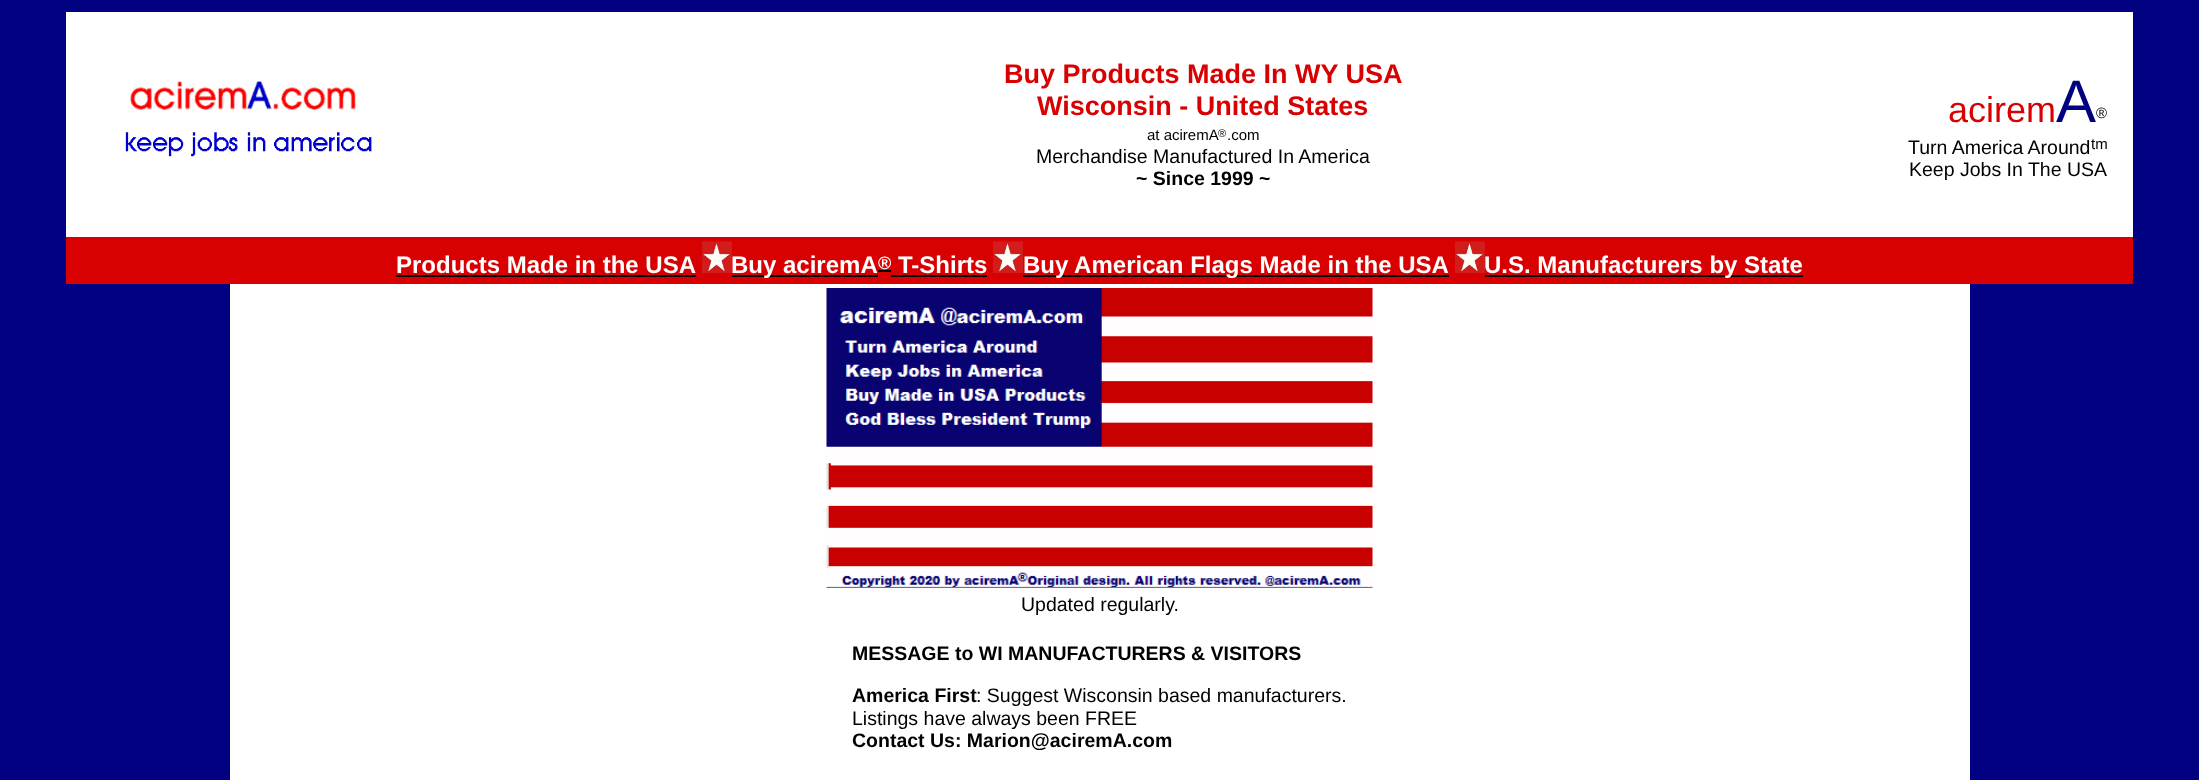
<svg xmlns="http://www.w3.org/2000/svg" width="2199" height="780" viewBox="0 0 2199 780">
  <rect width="100%" height="100%" fill="rgb(0,0,128)"/>
  <rect x="66" y="12" width="2067" height="225" fill="rgb(255,255,255)"/>
  <image x="125" y="81" width="247" height="76" href="pic1.png"/>
  <g font-family="Liberation Sans" font-size="27" font-weight="bold" fill="rgb(216,0,0)">
    <text x="1004" y="83">Buy Products Made In WY USA</text>
    <text x="1037" y="115">Wisconsin - United States</text>
  </g>
  <text x="1147" y="140" font-family="Liberation Sans" font-size="15" fill="rgb(0,0,0)">at aciremA</text>
  <text x="1218" y="137" font-family="Liberation Sans" font-size="11" fill="rgb(0,0,0)">®</text>
  <text x="1227" y="140" font-family="Liberation Sans" font-size="15" fill="rgb(0,0,0)">.com</text>
  <text x="1036" y="163" font-family="Liberation Sans" font-size="19.5" fill="rgb(0,0,0)">Merchandise Manufactured In America</text>
  <text x="1136" y="185" font-family="Liberation Sans" font-size="19.5" font-weight="bold" fill="rgb(0,0,0)">~ Since 1999 ~</text>
  <text x="1948" y="122" font-family="Liberation Sans" font-size="36" fill="rgb(216,0,0)">acirem</text>
  <text x="2056" y="122" font-family="Liberation Sans" font-size="60" fill="rgb(0,0,128)">A</text>
  <text x="2096" y="118" font-family="Liberation Sans" font-size="15" fill="rgb(0,0,0)">®</text>
  <text x="1908" y="154" font-family="Liberation Sans" font-size="19.5" fill="rgb(0,0,0)">Turn America Around</text>
  <text x="2091" y="149" font-family="Liberation Sans" font-size="15" fill="rgb(0,0,0)">tm</text>
  <text x="1909" y="176" font-family="Liberation Sans" font-size="19.5" fill="rgb(0,0,0)">Keep Jobs In The USA</text>
  <rect x="66" y="237" width="2067" height="47" fill="rgb(216,0,0)"/>
  <text x="396" y="273" font-family="Liberation Sans" font-size="24" font-weight="bold" fill="rgb(255,255,255)">Products Made in the USA</text>
  <rect x="396" y="275" width="300" height="2" fill="rgb(0,0,0)"/>
  <image x="702" y="241" width="30" height="32" href="pic2.png"/>
  <rect x="732" y="275" width="146" height="2" fill="rgb(0,0,0)"/>
  <text x="731" y="273" font-family="Liberation Sans" font-size="24" font-weight="bold" fill="rgb(255,255,255)">Buy aciremA</text>
  <rect x="878" y="270" width="13" height="2" fill="rgb(0,0,0)"/>
  <text x="878" y="269" font-family="Liberation Sans" font-size="18" font-weight="bold" fill="rgb(255,255,255)">®</text>
  <text x="898" y="273" font-family="Liberation Sans" font-size="24" font-weight="bold" fill="rgb(255,255,255)">T-Shirts</text>
  <rect x="891" y="275" width="96" height="2" fill="rgb(0,0,0)"/>
  <image x="993" y="241" width="30" height="32" href="pic3.png"/>
  <rect x="1023" y="275" width="426" height="2" fill="rgb(0,0,0)"/>
  <text x="1023" y="273" font-family="Liberation Sans" font-size="24" font-weight="bold" fill="rgb(255,255,255)">Buy American Flags Made in the USA</text>
  <image x="1455" y="241" width="30" height="32" href="pic3.png"/>
  <rect x="1485" y="275" width="318" height="2" fill="rgb(0,0,0)"/>
  <text x="1484" y="273" font-family="Liberation Sans" font-size="24" font-weight="bold" fill="rgb(255,255,255)">U.S. Manufacturers by State</text>
  <rect x="230" y="284" width="1740" height="496" fill="rgb(255,255,255)"/>
  <image x="826" y="288" width="547" height="300" href="pic4.png"/>
  <text x="1021" y="611" font-family="Liberation Sans" font-size="19.5" fill="rgb(0,0,0)">Updated regularly.</text>
  <g font-family="Liberation Sans" font-size="19.5" font-weight="bold" fill="rgb(0,0,0)">
    <text x="852" y="660">MESSAGE to WI MANUFACTURERS &amp; VISITORS</text>
    <text x="852" y="702">America First</text>
  </g>
  <g font-family="Liberation Sans" font-size="19.5" fill="rgb(0,0,0)">
    <text x="976" y="702">: Suggest Wisconsin based manufacturers.</text>
    <text x="852" y="725">Listings have always been FREE</text>
  </g>
  <text x="852" y="747" font-family="Liberation Sans" font-size="19.5" font-weight="bold" fill="rgb(0,0,0)">Contact Us: Marion@aciremA.com</text>
</svg>
